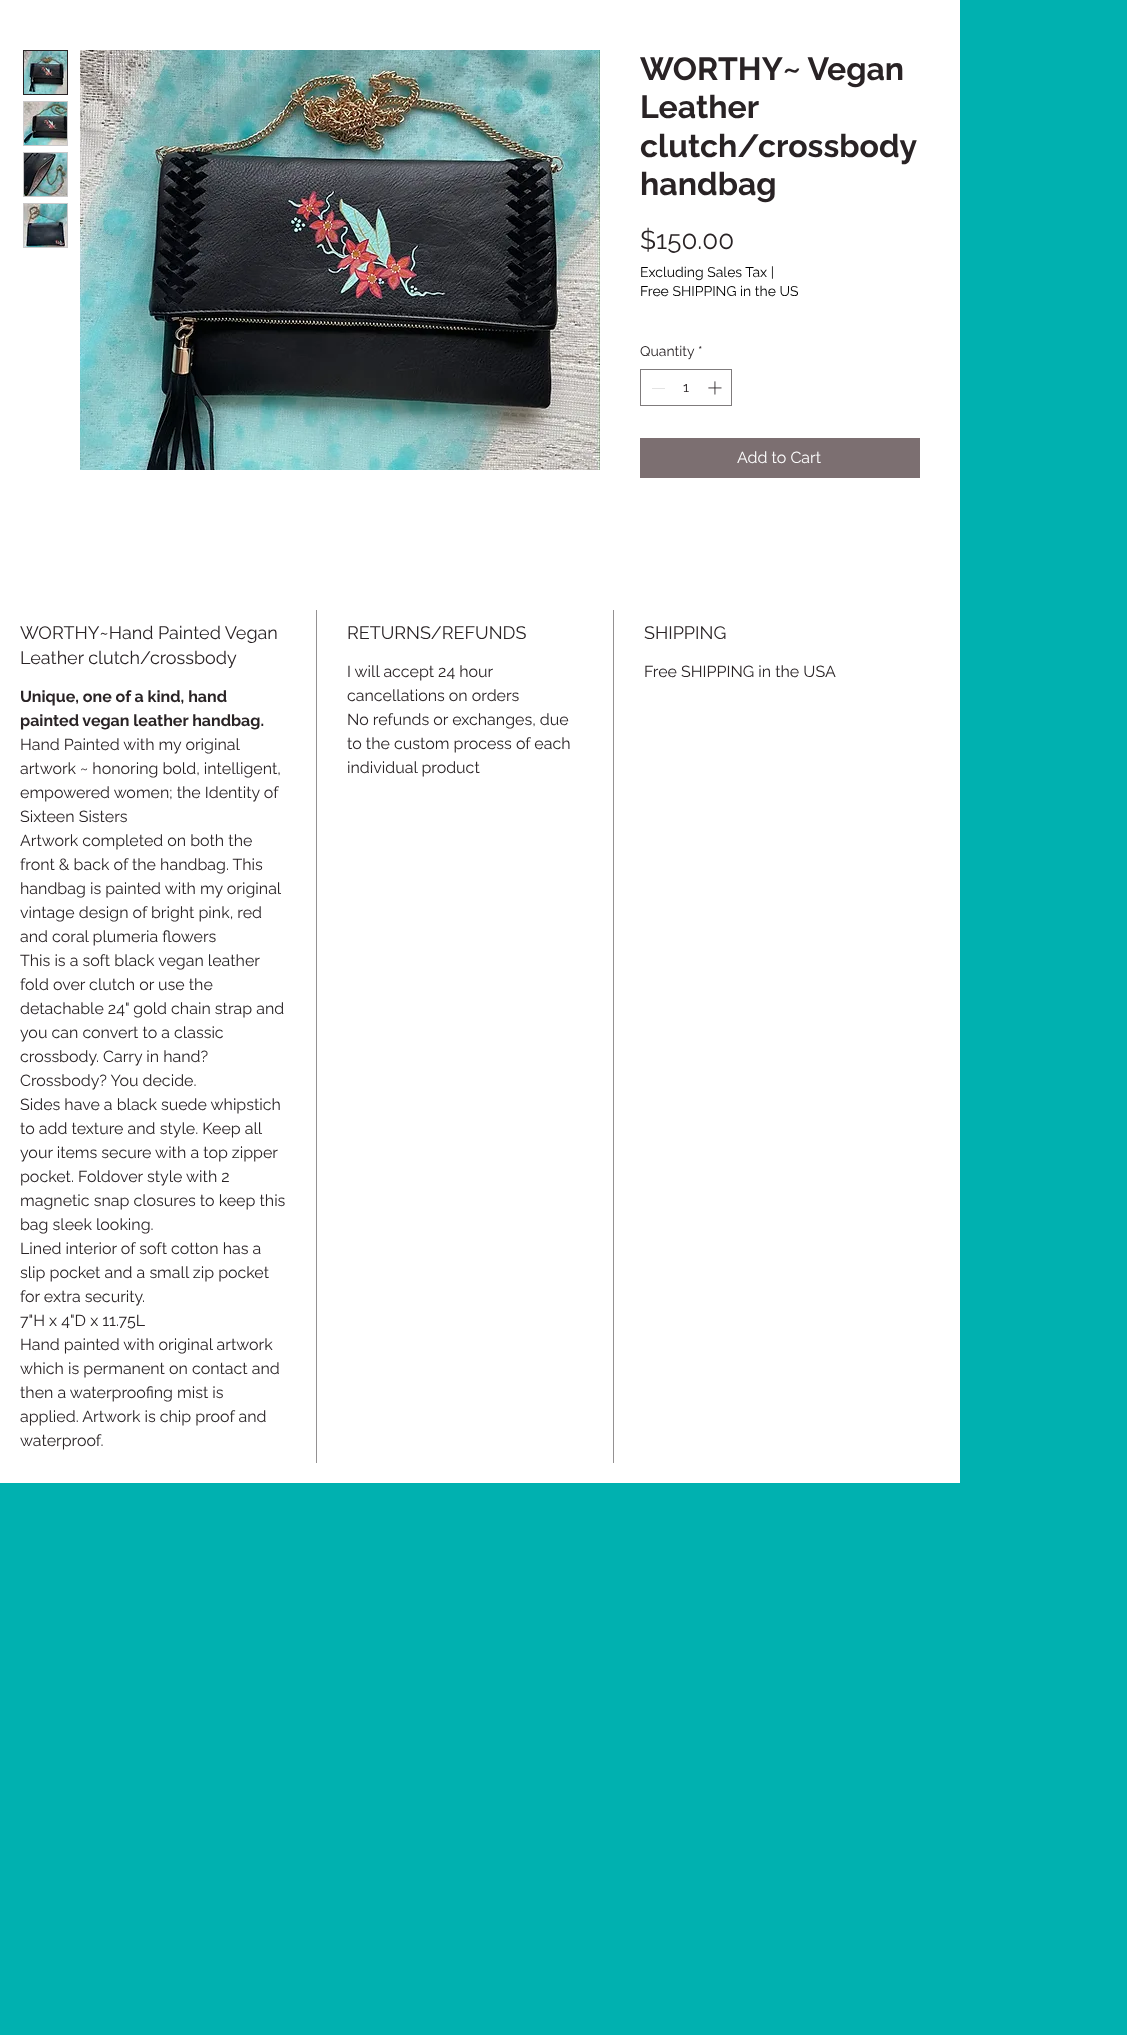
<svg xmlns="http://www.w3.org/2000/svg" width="1127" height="2035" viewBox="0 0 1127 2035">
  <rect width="100%" height="100%" fill="rgb(0,177,176)"/>
  <rect x="0" y="0" width="960" height="1483" fill="rgb(255,255,255)"/>
  <rect x="23.5" y="50.5" width="44" height="44" fill="none" stroke="rgb(41,35,37)"/>
  <image x="24" y="51" width="43" height="43" href="pic1.png"/>
  <rect x="23" y="101" width="45" height="45" fill="rgb(202,200,201)"/>
  <image x="24" y="102" width="43" height="43" href="pic2.png"/>
  <rect x="23" y="152" width="45" height="45" fill="rgb(202,200,201)"/>
  <image x="24" y="153" width="43" height="43" href="pic3.png"/>
  <rect x="23" y="203" width="45" height="45" fill="rgb(202,200,201)"/>
  <image x="24" y="204" width="43" height="43" href="pic4.png"/>
  <image x="80" y="50" width="520" height="420" href="pic5.png"/>
  <g font-family="Raleway" font-size="32" font-weight="bold" fill="rgb(41,35,37)">
    <text>
      <tspan x="640" y="80">WORTHY~ Vegan</tspan>
      <tspan x="640" y="118">Leather</tspan>
      <tspan x="640" y="157">clutch/crossbody</tspan>
      <tspan x="640" y="195">handbag</tspan>
    </text>
  </g>
  <text x="640" y="249" font-family="Raleway" font-size="26" fill="rgb(41,35,37)">$150.00</text>
  <g font-family="Raleway" font-size="14" fill="rgb(0,0,0)">
    <text>
      <tspan x="640" y="277">Excluding Sales Tax |</tspan>
      <tspan x="640" y="296">Free SHIPPING in the US</tspan>
    </text>
  </g>
  <g font-family="Raleway" font-size="14" fill="rgb(41,35,37)">
    <text x="640" y="356">Quantity</text>
    <text x="698" y="356">*</text>
  </g>
  <rect x="640.5" y="369.5" width="91" height="36" fill="none" stroke="rgb(127,123,124)"/>
  <rect x="652" y="388" width="13" height="1" fill="rgb(227,227,227)"/>
  <text x="683" y="392" font-family="Raleway" font-size="14" fill="rgb(41,35,37)">1</text>
  <image x="708" y="381" width="14" height="14" href="pic6.png"/>
  <rect x="640" y="438" width="280" height="40" fill="rgb(124,111,113)"/>
  <text x="737" y="463" font-family="Raleway" font-size="16" fill="rgb(255,255,255)">Add to Cart</text>
  <rect x="316" y="610" width="1" height="853" fill="rgb(148,145,146)"/>
  <g font-family="Raleway" font-size="18" fill="rgb(41,35,37)">
    <text>
      <tspan x="20" y="639">WORTHY~Hand Painted Vegan</tspan>
      <tspan x="20" y="664">Leather clutch/crossbody</tspan>
    </text>
  </g>
  <g font-family="Raleway" font-size="16" font-weight="bold" fill="rgb(41,35,37)">
    <text>
      <tspan x="20" y="702">Unique, one of a kind, hand</tspan>
      <tspan x="20" y="726">painted vegan leather handbag.</tspan>
    </text>
  </g>
  <g font-family="Raleway" font-size="16" fill="rgb(41,35,37)">
    <text>
      <tspan x="20" y="750">Hand Painted with my original</tspan>
      <tspan x="20" y="774">artwork ~ honoring bold, intelligent,</tspan>
      <tspan x="20" y="798">empowered women; the Identity of</tspan>
      <tspan x="20" y="822">Sixteen Sisters</tspan>
      <tspan x="20" y="846">Artwork completed on both the</tspan>
      <tspan x="20" y="870">front &amp; back of the handbag. This</tspan>
      <tspan x="20" y="894">handbag is painted with my original</tspan>
      <tspan x="20" y="918">vintage design of bright pink, red</tspan>
      <tspan x="20" y="942">and coral plumeria flowers</tspan>
      <tspan x="20" y="966">This is a soft black vegan leather</tspan>
      <tspan x="20" y="990">fold over clutch or use the</tspan>
      <tspan x="20" y="1014">detachable 24" gold chain strap and</tspan>
      <tspan x="20" y="1038">you can convert to a classic</tspan>
      <tspan x="20" y="1062">crossbody. Carry in hand?</tspan>
      <tspan x="20" y="1086">Crossbody? You decide.</tspan>
      <tspan x="20" y="1110">Sides have a black suede whipstich</tspan>
      <tspan x="20" y="1134">to add texture and style. Keep all</tspan>
      <tspan x="20" y="1158">your items secure with a top zipper</tspan>
      <tspan x="20" y="1182">pocket. Foldover style with 2</tspan>
      <tspan x="20" y="1206">magnetic snap closures to keep this</tspan>
      <tspan x="20" y="1230">bag sleek looking.</tspan>
      <tspan x="20" y="1254">Lined interior of soft cotton has a</tspan>
      <tspan x="20" y="1278">slip pocket and a small zip pocket</tspan>
      <tspan x="20" y="1302">for extra security.</tspan>
      <tspan x="20" y="1326">7"H x 4"D x 11.75L</tspan>
      <tspan x="20" y="1350">Hand painted with original artwork</tspan>
      <tspan x="20" y="1374">which is permanent on contact and</tspan>
      <tspan x="20" y="1398">then a waterproofing mist is</tspan>
      <tspan x="20" y="1422">applied. Artwork is chip proof and</tspan>
      <tspan x="20" y="1446">waterproof.</tspan>
    </text>
  </g>
  <rect x="613" y="610" width="1" height="853" fill="rgb(148,145,146)"/>
  <text x="347" y="639" font-family="Raleway" font-size="18" fill="rgb(41,35,37)">RETURNS/REFUNDS</text>
  <g font-family="Raleway" font-size="16" fill="rgb(41,35,37)">
    <text>
      <tspan x="347" y="677">I will accept 24 hour</tspan>
      <tspan x="347" y="701">cancellations on orders</tspan>
      <tspan x="347" y="725">No refunds or exchanges, due</tspan>
      <tspan x="347" y="749">to the custom process of each</tspan>
      <tspan x="347" y="773">individual product</tspan>
    </text>
  </g>
  <text x="644" y="639" font-family="Raleway" font-size="18" fill="rgb(41,35,37)">SHIPPING</text>
  <text x="644" y="677" font-family="Raleway" font-size="16" fill="rgb(41,35,37)">Free SHIPPING in the USA</text>
</svg>
